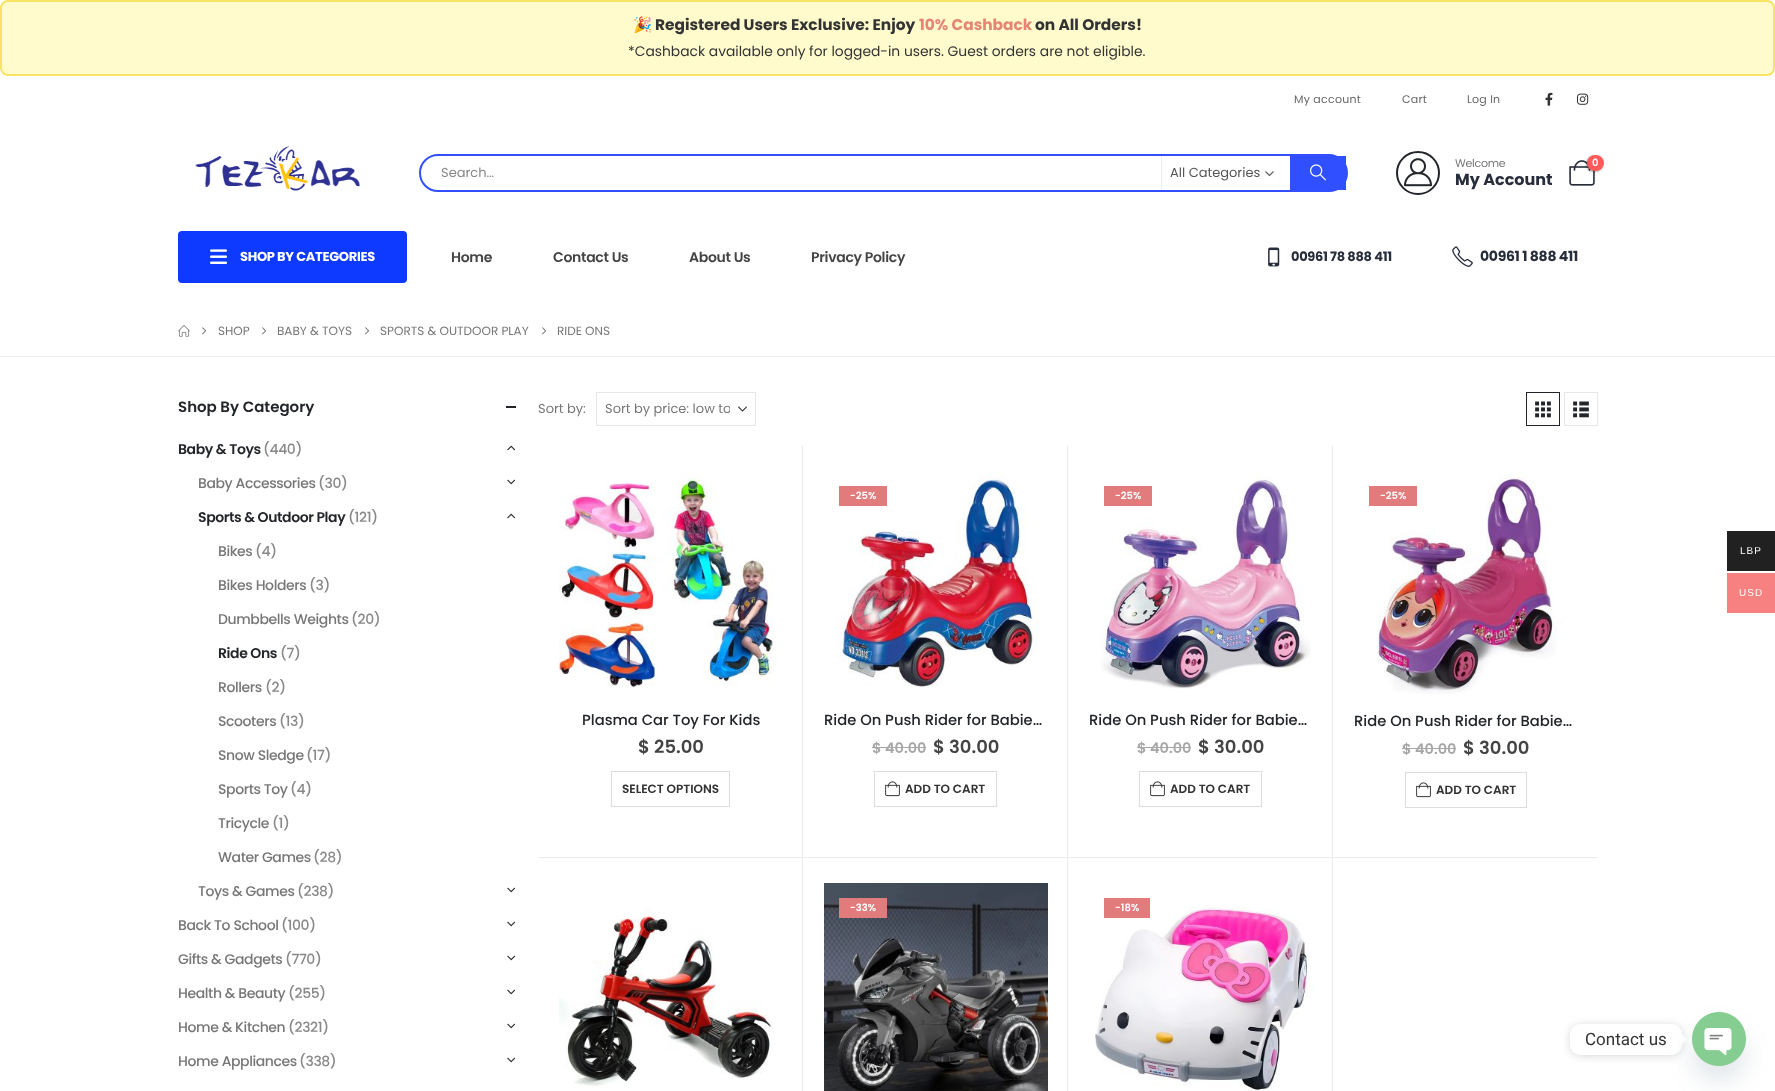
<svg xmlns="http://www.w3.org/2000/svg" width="1775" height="1091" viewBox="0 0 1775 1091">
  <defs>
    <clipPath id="clip1"><rect x="605" y="400" width="125" height="18"/></clipPath>
  </defs>
  <rect width="100%" height="100%" fill="rgb(255,255,255)"/>
  <rect x="1" y="1" width="1773" height="74" rx="7" fill="rgb(255,251,204)" stroke="rgb(247,228,99)" stroke-width="2"/>
  <text x="633" y="30" font-family="Noto Color Emoji" font-size="15.4" font-weight="bold" fill="rgb(51,51,51)">🎉</text>
  <text x="655" y="30" font-family="Poppins" font-size="15.4" font-weight="bold" fill="rgb(51,51,51)">Registered Users Exclusive: Enjoy</text>
  <text x="919" y="30" font-family="Poppins" font-size="15.4" font-weight="bold" fill="rgb(228,133,117)">10% Cashback</text>
  <text x="1035" y="30" font-family="Poppins" font-size="15.4" font-weight="bold" fill="rgb(51,51,51)">on All Orders!</text>
  <text x="628" y="56" font-family="Poppins" font-size="13.85" fill="rgb(51,51,51)">*Cashback available only for logged-in users. Guest orders are not eligible.</text>
  <g font-family="Poppins" font-size="11" letter-spacing="0.25" fill="rgb(102,102,102)">
    <text x="1294" y="103">My account</text>
    <text x="1402" y="103">Cart</text>
    <text x="1467" y="103">Log In</text>
  </g>
  <image x="1545" y="92" width="8" height="14" href="pic1.png"/>
  <image x="1577" y="93" width="12" height="12" href="pic2.png"/>
  <image x="195" y="146" width="165" height="45" href="pic3.png"/>
  <circle cx="1418" cy="173" r="21" fill="none" stroke="rgb(34,37,41)" stroke-width="2"/>
  <image x="1404" y="158" width="28" height="29" href="pic4.png"/>
  <text x="1455" y="167" font-family="Poppins" font-size="11" letter-spacing="-0.25" fill="rgb(119,119,119)">Welcome</text>
  <text x="1455" y="185" font-family="Poppins" font-size="16" font-weight="bold" fill="rgb(40,45,59)">My Account</text>
  <image x="1569" y="160" width="26" height="26" href="pic5.png"/>
  <rect x="1586" y="156" width="17" height="16" rx="8" fill="rgba(0,0,0,0.3)" filter="blur(1px)"/>
  <rect x="1587" y="155" width="17" height="16" rx="8" fill="rgb(255,91,91)"/>
  <text x="1592" y="166" font-family="Poppins" font-size="10" font-weight="600" fill="rgb(255,255,255)">0</text>
  <rect x="420" y="155" width="927" height="36" rx="18" fill="none" stroke="rgb(50,80,255)" stroke-width="2"/>
  <text x="441" y="177" font-family="Poppins" font-size="13" fill="rgb(136,136,136)">Search…</text>
  <rect x="1161" y="156" width="1" height="34" fill="rgb(238,238,238)"/>
  <text x="1170" y="177" font-family="Poppins" font-size="13" fill="rgb(85,85,85)">All Categories</text>
  <image x="1265" y="171" width="9" height="6" href="pic6.png"/>
  <rect x="1290" y="156" width="56" height="34" fill="rgb(48,80,255)"/>
  <image x="1310" y="164" width="16" height="17" href="pic7.png"/>
  <rect x="178" y="231" width="229" height="52" rx="4" fill="rgb(14,57,255)"/>
  <image x="210" y="249" width="17" height="15" href="pic8.png"/>
  <text x="240" y="261" font-family="Poppins" font-size="13" font-weight="bold" letter-spacing="-0.3" fill="rgb(255,255,255)">SHOP BY CATEGORIES</text>
  <g font-family="Poppins" font-size="14" font-weight="600" letter-spacing="-0.3" fill="rgb(68,68,68)">
    <text x="451" y="262">Home</text>
    <text x="553" y="262">Contact Us</text>
    <text x="689" y="262">About Us</text>
    <text x="811" y="262">Privacy Policy</text>
  </g>
  <image x="1268" y="247" width="12" height="20" href="pic9.png"/>
  <text x="1291" y="261" font-family="Poppins" font-size="13" font-weight="bold" letter-spacing="-0.3" fill="rgb(40,45,59)">00961 78 888 411</text>
  <image x="1452" y="246" width="21" height="21" href="pic10.png"/>
  <text x="1480" y="261" font-family="Poppins" font-size="14" font-weight="bold" letter-spacing="-0.3" fill="rgb(40,45,59)">00961 1 888 411</text>
  <rect x="0" y="356" width="1775" height="1" fill="rgb(238,238,238)"/>
  <image x="178" y="325" width="12" height="12" href="pic11.png"/>
  <image x="202" y="327" width="5" height="8" href="pic12.png"/>
  <text x="218" y="335" font-family="Poppins" font-size="12" fill="rgb(119,119,119)">SHOP</text>
  <image x="262" y="327" width="5" height="8" href="pic12.png"/>
  <text x="277" y="335" font-family="Poppins" font-size="12" fill="rgb(119,119,119)">BABY &amp; TOYS</text>
  <image x="365" y="327" width="5" height="8" href="pic12.png"/>
  <text x="380" y="335" font-family="Poppins" font-size="12" fill="rgb(119,119,119)">SPORTS &amp; OUTDOOR PLAY</text>
  <image x="542" y="327" width="5" height="8" href="pic12.png"/>
  <text x="557" y="335" font-family="Poppins" font-size="12" fill="rgb(119,119,119)">RIDE ONS</text>
  <text x="178" y="412" font-family="Poppins" font-size="15" font-weight="600" fill="rgb(34,37,41)">Shop By Category</text>
  <rect x="506" y="406" width="10" height="2" fill="rgb(34,37,41)"/>
  <text x="178" y="454" font-family="Poppins" font-size="14" font-weight="600" letter-spacing="-0.4" fill="rgb(34,37,41)">Baby &amp; Toys</text>
  <text x="263" y="454" font-family="Poppins" font-size="14" font-weight="500" letter-spacing="-0.4" fill="rgb(136,136,136)">(440)</text>
  <image x="507" y="445" width="9" height="6" href="pic13.png"/>
  <text x="198" y="488" font-family="Poppins" font-size="14" font-weight="500" letter-spacing="-0.4" fill="rgb(119,119,119)">Baby Accessories</text>
  <text x="318" y="488" font-family="Poppins" font-size="14" font-weight="500" letter-spacing="-0.4" fill="rgb(136,136,136)">(30)</text>
  <image x="507" y="479" width="9" height="6" href="pic14.png"/>
  <text x="198" y="522" font-family="Poppins" font-size="14" font-weight="600" letter-spacing="-0.4" fill="rgb(34,37,41)">Sports &amp; Outdoor Play</text>
  <text x="348" y="522" font-family="Poppins" font-size="14" font-weight="500" letter-spacing="-0.4" fill="rgb(136,136,136)">(121)</text>
  <image x="507" y="513" width="9" height="6" href="pic13.png"/>
  <text x="218" y="556" font-family="Poppins" font-size="14" font-weight="500" letter-spacing="-0.4" fill="rgb(119,119,119)">Bikes</text>
  <text x="255" y="556" font-family="Poppins" font-size="14" font-weight="500" letter-spacing="-0.4" fill="rgb(136,136,136)">(4)</text>
  <text x="218" y="590" font-family="Poppins" font-size="14" font-weight="500" letter-spacing="-0.4" fill="rgb(119,119,119)">Bikes Holders</text>
  <text x="309" y="590" font-family="Poppins" font-size="14" font-weight="500" letter-spacing="-0.4" fill="rgb(136,136,136)">(3)</text>
  <text x="218" y="624" font-family="Poppins" font-size="14" font-weight="500" letter-spacing="-0.4" fill="rgb(119,119,119)">Dumbbells Weights</text>
  <text x="351" y="624" font-family="Poppins" font-size="14" font-weight="500" letter-spacing="-0.4" fill="rgb(136,136,136)">(20)</text>
  <text x="218" y="658" font-family="Poppins" font-size="14" font-weight="600" letter-spacing="-0.4" fill="rgb(34,37,41)">Ride Ons</text>
  <text x="280" y="658" font-family="Poppins" font-size="14" font-weight="500" letter-spacing="-0.4" fill="rgb(136,136,136)">(7)</text>
  <text x="218" y="692" font-family="Poppins" font-size="14" font-weight="500" letter-spacing="-0.4" fill="rgb(119,119,119)">Rollers</text>
  <text x="265" y="692" font-family="Poppins" font-size="14" font-weight="500" letter-spacing="-0.4" fill="rgb(136,136,136)">(2)</text>
  <text x="218" y="726" font-family="Poppins" font-size="14" font-weight="500" letter-spacing="-0.4" fill="rgb(119,119,119)">Scooters</text>
  <text x="279" y="726" font-family="Poppins" font-size="14" font-weight="500" letter-spacing="-0.4" fill="rgb(136,136,136)">(13)</text>
  <text x="218" y="760" font-family="Poppins" font-size="14" font-weight="500" letter-spacing="-0.4" fill="rgb(119,119,119)">Snow Sledge</text>
  <text x="306" y="760" font-family="Poppins" font-size="14" font-weight="500" letter-spacing="-0.4" fill="rgb(136,136,136)">(17)</text>
  <text x="218" y="794" font-family="Poppins" font-size="14" font-weight="500" letter-spacing="-0.4" fill="rgb(119,119,119)">Sports Toy</text>
  <text x="290" y="794" font-family="Poppins" font-size="14" font-weight="500" letter-spacing="-0.4" fill="rgb(136,136,136)">(4)</text>
  <text x="218" y="828" font-family="Poppins" font-size="14" font-weight="500" letter-spacing="-0.4" fill="rgb(119,119,119)">Tricycle</text>
  <text x="272" y="828" font-family="Poppins" font-size="14" font-weight="500" letter-spacing="-0.4" fill="rgb(136,136,136)">(1)</text>
  <text x="218" y="862" font-family="Poppins" font-size="14" font-weight="500" letter-spacing="-0.4" fill="rgb(119,119,119)">Water Games</text>
  <text x="313" y="862" font-family="Poppins" font-size="14" font-weight="500" letter-spacing="-0.4" fill="rgb(136,136,136)">(28)</text>
  <text x="198" y="896" font-family="Poppins" font-size="14" font-weight="500" letter-spacing="-0.4" fill="rgb(119,119,119)">Toys &amp; Games</text>
  <text x="297" y="896" font-family="Poppins" font-size="14" font-weight="500" letter-spacing="-0.4" fill="rgb(136,136,136)">(238)</text>
  <image x="507" y="887" width="9" height="6" href="pic14.png"/>
  <text x="178" y="930" font-family="Poppins" font-size="14" font-weight="500" letter-spacing="-0.4" fill="rgb(119,119,119)">Back To School</text>
  <text x="281" y="930" font-family="Poppins" font-size="14" font-weight="500" letter-spacing="-0.4" fill="rgb(136,136,136)">(100)</text>
  <image x="507" y="921" width="9" height="6" href="pic14.png"/>
  <text x="178" y="964" font-family="Poppins" font-size="14" font-weight="500" letter-spacing="-0.4" fill="rgb(119,119,119)">Gifts &amp; Gadgets</text>
  <text x="285" y="964" font-family="Poppins" font-size="14" font-weight="500" letter-spacing="-0.4" fill="rgb(136,136,136)">(770)</text>
  <image x="507" y="955" width="9" height="6" href="pic14.png"/>
  <text x="178" y="998" font-family="Poppins" font-size="14" font-weight="500" letter-spacing="-0.4" fill="rgb(119,119,119)">Health &amp; Beauty</text>
  <text x="288" y="998" font-family="Poppins" font-size="14" font-weight="500" letter-spacing="-0.4" fill="rgb(136,136,136)">(255)</text>
  <image x="507" y="989" width="9" height="6" href="pic14.png"/>
  <text x="178" y="1032" font-family="Poppins" font-size="14" font-weight="500" letter-spacing="-0.4" fill="rgb(119,119,119)">Home &amp; Kitchen</text>
  <text x="288" y="1032" font-family="Poppins" font-size="14" font-weight="500" letter-spacing="-0.4" fill="rgb(136,136,136)">(2321)</text>
  <image x="507" y="1023" width="9" height="6" href="pic14.png"/>
  <text x="178" y="1066" font-family="Poppins" font-size="14" font-weight="500" letter-spacing="-0.4" fill="rgb(119,119,119)">Home Appliances</text>
  <text x="299" y="1066" font-family="Poppins" font-size="14" font-weight="500" letter-spacing="-0.4" fill="rgb(136,136,136)">(338)</text>
  <image x="507" y="1057" width="9" height="6" href="pic14.png"/>
  <text x="538" y="413" font-family="Poppins" font-size="13" fill="rgb(119,119,119)">Sort by:</text>
  <image x="738" y="406" width="9" height="6" href="pic15.png"/>
  <rect x="596.5" y="392.5" width="159" height="33" fill="none" stroke="rgb(231,231,231)"/>
  <g clip-path="url(#clip1)">
    <text x="605" y="413" font-family="Poppins" font-size="13" fill="rgb(119,119,119)">Sort by price: low to</text>
  </g>
  <rect x="1526.5" y="392.5" width="33" height="33" fill="none" stroke="rgb(34,37,41)"/>
  <image x="1535" y="401" width="16" height="17" href="pic16.png"/>
  <rect x="1564.5" y="392.5" width="33" height="33" fill="none" stroke="rgb(231,231,231)"/>
  <image x="1573" y="401" width="16" height="17" href="pic17.png"/>
  <path d="M803 446V858L802 857V446Z" fill="rgb(235,235,235)"/>
  <path d="M803 858H538V857H802Z" fill="rgba(0,0,0,0.08)"/>
  <image x="559" y="471" width="216" height="216" href="pic18.png"/>
  <text x="582" y="725" font-family="Poppins" font-size="14.75" font-weight="500" fill="rgb(34,37,41)">Plasma Car Toy For Kids</text>
  <text x="638" y="753" font-family="Poppins" font-size="18" font-weight="600" fill="rgb(68,68,68)">$ 25.00</text>
  <rect x="611.5" y="771.5" width="118" height="35" fill="none" stroke="rgb(221,221,221)"/>
  <text x="622" y="793" font-family="Poppins" font-size="12" font-weight="600" fill="rgb(51,51,51)">SELECT OPTIONS</text>
  <path d="M1068 446V858L1067 857V446Z" fill="rgb(235,235,235)"/>
  <path d="M1068 858H803V857H1067Z" fill="rgba(0,0,0,0.08)"/>
  <image x="836" y="471" width="203" height="216" href="pic19.png"/>
  <rect x="839" y="486" width="48" height="20" fill="rgb(226,124,124)"/>
  <text x="850" y="499" font-family="Poppins" font-size="10" font-weight="600" fill="rgb(255,255,255)">-25%</text>
  <text x="824" y="725" font-family="Poppins" font-size="14.75" font-weight="500" fill="rgb(34,37,41)">Ride On Push Rider for Babie…</text>
  <text x="872" y="753" font-family="Poppins" font-size="14.5" font-weight="600" fill="rgb(167,167,167)">$ 40.00</text>
  <rect x="872" y="747" width="54" height="1" fill="rgb(167,167,167)"/>
  <text x="933" y="753" font-family="Poppins" font-size="18" font-weight="600" fill="rgb(68,68,68)">$ 30.00</text>
  <rect x="874.5" y="771.5" width="122" height="35" fill="none" stroke="rgb(221,221,221)"/>
  <image x="885" y="781" width="15" height="16" href="pic20.png"/>
  <text x="905" y="793" font-family="Poppins" font-size="12" font-weight="600" fill="rgb(51,51,51)">ADD TO CART</text>
  <path d="M1333 446V858L1332 857V446Z" fill="rgb(235,235,235)"/>
  <path d="M1333 858H1068V857H1332Z" fill="rgba(0,0,0,0.08)"/>
  <image x="1101" y="475" width="210" height="214" href="pic21.png"/>
  <rect x="1104" y="486" width="48" height="20" fill="rgb(226,124,124)"/>
  <text x="1115" y="499" font-family="Poppins" font-size="10" font-weight="600" fill="rgb(255,255,255)">-25%</text>
  <text x="1089" y="725" font-family="Poppins" font-size="14.75" font-weight="500" fill="rgb(34,37,41)">Ride On Push Rider for Babie…</text>
  <text x="1137" y="753" font-family="Poppins" font-size="14.5" font-weight="600" fill="rgb(167,167,167)">$ 40.00</text>
  <rect x="1137" y="747" width="54" height="1" fill="rgb(167,167,167)"/>
  <text x="1198" y="753" font-family="Poppins" font-size="18" font-weight="600" fill="rgb(68,68,68)">$ 30.00</text>
  <rect x="1139.5" y="771.5" width="122" height="35" fill="none" stroke="rgb(221,221,221)"/>
  <image x="1150" y="781" width="15" height="16" href="pic20.png"/>
  <text x="1170" y="793" font-family="Poppins" font-size="12" font-weight="600" fill="rgb(51,51,51)">ADD TO CART</text>
  <rect x="1333" y="857" width="265" height="1" fill="rgb(235,235,235)"/>
  <image x="1378" y="471" width="180" height="223" href="pic22.png"/>
  <rect x="1369" y="486" width="48" height="20" fill="rgb(226,124,124)"/>
  <text x="1380" y="499" font-family="Poppins" font-size="10" font-weight="600" fill="rgb(255,255,255)">-25%</text>
  <text x="1354" y="726" font-family="Poppins" font-size="14.75" font-weight="500" fill="rgb(34,37,41)">Ride On Push Rider for Babie…</text>
  <text x="1402" y="754" font-family="Poppins" font-size="14.5" font-weight="600" fill="rgb(167,167,167)">$ 40.00</text>
  <rect x="1402" y="748" width="54" height="1" fill="rgb(167,167,167)"/>
  <text x="1463" y="754" font-family="Poppins" font-size="18" font-weight="600" fill="rgb(68,68,68)">$ 30.00</text>
  <rect x="1405.5" y="772.5" width="121" height="35" fill="none" stroke="rgb(221,221,221)"/>
  <image x="1416" y="782" width="15" height="16" href="pic20.png"/>
  <text x="1436" y="794" font-family="Poppins" font-size="12" font-weight="600" fill="rgb(51,51,51)">ADD TO CART</text>
  <path d="M803 858V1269L802 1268V858Z" fill="rgb(235,235,235)"/>
  <image x="559" y="907" width="215" height="179" href="pic23.png"/>
  <path d="M1068 858V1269L1067 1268V858Z" fill="rgb(235,235,235)"/>
  <image x="824" y="883" width="224" height="208" href="pic24.png"/>
  <rect x="839" y="898" width="48" height="20" fill="rgb(226,124,124)"/>
  <text x="850" y="911" font-family="Poppins" font-size="10" font-weight="600" fill="rgb(255,255,255)">-33%</text>
  <path d="M1333 858V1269L1332 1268V858Z" fill="rgb(235,235,235)"/>
  <image x="1095" y="907" width="218" height="184" href="pic25.png"/>
  <rect x="1104" y="898" width="46" height="20" fill="rgb(226,124,124)"/>
  <text x="1115" y="911" font-family="Poppins" font-size="10" font-weight="600" fill="rgb(255,255,255)">-18%</text>
  <rect x="1727" y="531" width="48" height="40" fill="rgb(33,33,33)"/>
  <text x="1740" y="554" font-family="Liberation Sans" font-size="10" letter-spacing="1" fill="rgb(255,255,255)">LBP</text>
  <rect x="1727" y="573" width="48" height="40" fill="rgb(247,128,128)"/>
  <text x="1739" y="596" font-family="Liberation Sans" font-size="10" letter-spacing="1" fill="rgb(255,255,255)">USD</text>
  <rect x="1570" y="1025" width="112" height="31" rx="10" fill="rgba(0,0,0,0.15)" filter="blur(4px)"/>
  <rect x="1570" y="1024" width="112" height="31" rx="10" fill="rgb(255,255,255)"/>
  <text x="1585" y="1045" font-family="Roboto" font-size="17" fill="rgb(51,51,51)">Contact us</text>
  <path d="M1682 1044.5V1034.5L1687 1039.5Z" fill="rgb(255,255,255)"/>
  <rect x="1692" y="1028" width="54" height="54" rx="27" fill="rgba(73,104,126,0.16)" filter="blur(12px)"/>
  <image x="1692" y="1012" width="54" height="54" href="pic26.png"/>
</svg>
